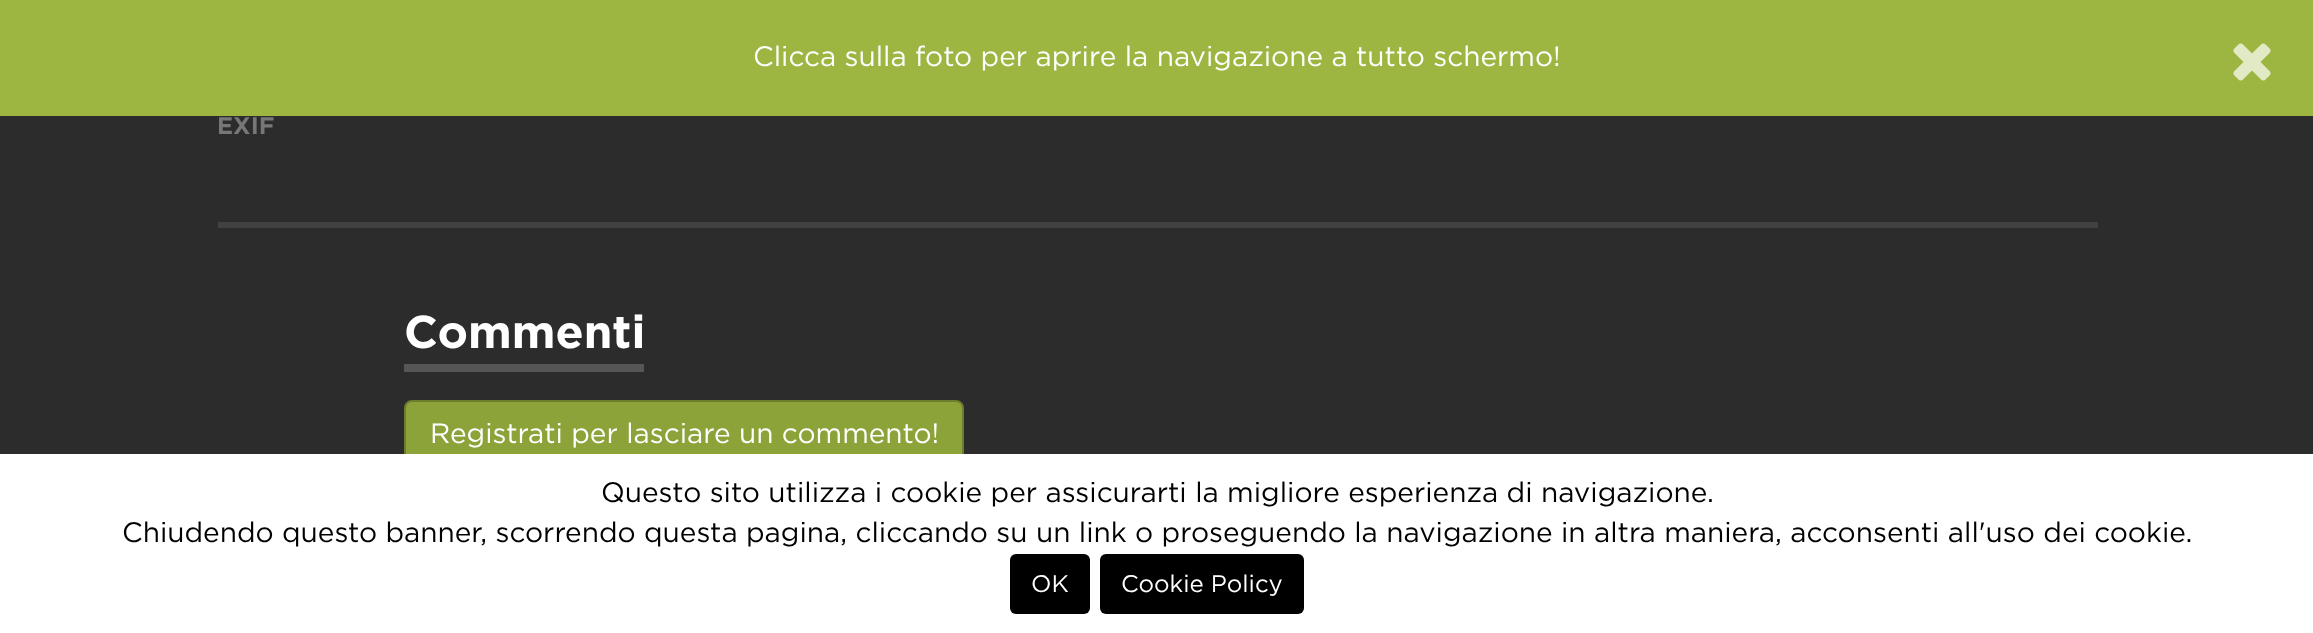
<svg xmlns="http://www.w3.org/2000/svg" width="2313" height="633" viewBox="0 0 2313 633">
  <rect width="100%" height="100%" fill="rgb(44,44,44)"/>
  <rect x="0" y="0" width="2313" height="116" fill="rgb(156,182,65)"/>
  <text x="753" y="66" font-family="Gotham" font-size="28" fill="rgb(255,255,255)">Clicca sulla foto per aprire la navigazione a tutto schermo!</text>
  <image x="2233" y="43" width="38" height="38" href="pic1.png"/>
  <text x="217" y="134" font-family="Gotham" font-size="24" font-weight="bold" fill="rgb(119,119,119)">EXIF</text>
  <rect x="218" y="222" width="1880" height="6" fill="rgb(65,65,65)"/>
  <text x="404" y="348" font-family="Gotham" font-size="46" font-weight="bold" fill="rgb(255,255,255)">Commenti</text>
  <rect x="404" y="364" width="240" height="8" fill="rgb(86,86,86)"/>
  <rect x="405" y="401" width="558" height="66" rx="7" fill="rgb(140,163,58)" stroke="rgb(108,126,45)" stroke-width="2"/>
  <text x="430" y="443" font-family="Gotham" font-size="28" fill="rgb(255,255,255)">Registrati per lasciare un commento!</text>
  <rect x="0" y="454" width="2313" height="179" fill="rgb(255,255,255)"/>
  <g font-family="Gotham" font-size="28" fill="rgb(0,0,0)">
    <text x="601" y="502">Questo sito utilizza i cookie per assicurarti la migliore esperienza di navigazione.</text>
    <text x="122" y="542">Chiudendo questo banner, scorrendo questa pagina, cliccando su un link o proseguendo la navigazione in altra maniera, acconsenti all'uso dei cookie.</text>
  </g>
  <rect x="1010" y="554" width="80" height="60" rx="6" fill="rgb(0,0,0)"/>
  <text x="1031" y="592" font-family="Gotham" font-size="24" fill="rgb(255,255,255)">OK</text>
  <rect x="1100" y="554" width="204" height="60" rx="6" fill="rgb(0,0,0)"/>
  <text x="1121" y="592" font-family="Gotham" font-size="24" fill="rgb(255,255,255)">Cookie Policy</text>
</svg>
